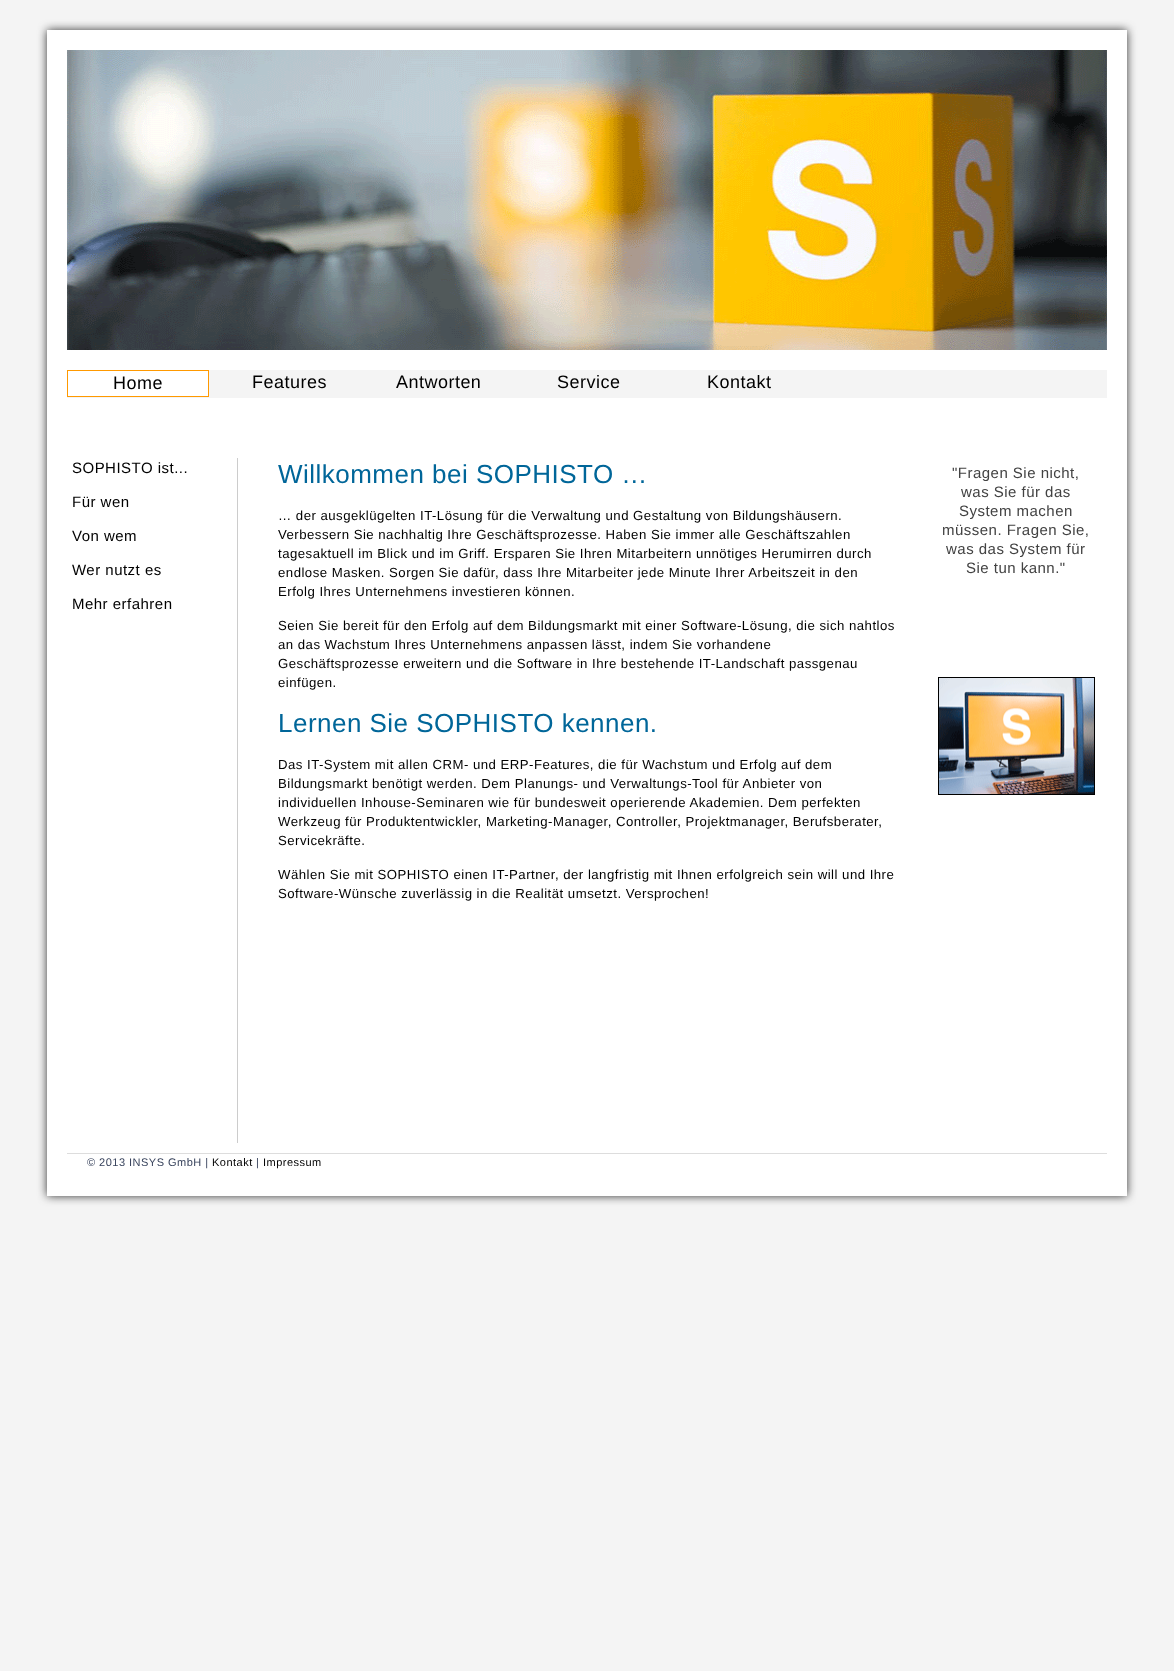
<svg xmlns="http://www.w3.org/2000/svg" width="1174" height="1671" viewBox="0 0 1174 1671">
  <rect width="100%" height="100%" fill="rgb(244,244,244)"/>
  <rect x="47" y="30" width="1080" height="1166" fill="rgb(51,51,51)" filter="blur(5px)"/>
  <rect x="47" y="30" width="1080" height="1166" fill="rgb(255,255,255)"/>
  <image x="67" y="50" width="1040" height="300" href="pic1.png"/>
  <rect x="67" y="370" width="1040" height="28" fill="rgb(244,244,244)"/>
  <rect x="67.5" y="370.5" width="141" height="26" fill="rgb(255,255,255)" stroke="rgb(255,153,0)"/>
  <g font-family="Liberation Sans" font-size="18" letter-spacing="0.48" fill="rgb(0,0,0)">
    <text x="113" y="389">Home</text>
    <text x="252" y="388">Features</text>
    <text x="396" y="388">Antworten</text>
    <text x="557" y="388">Service</text>
    <text x="707" y="388">Kontakt</text>
  </g>
  <g font-family="Liberation Sans" font-size="15" letter-spacing="0.48" fill="rgb(0,0,0)">
    <text x="72" y="473">SOPHISTO ist...</text>
    <text x="72" y="507">Für wen</text>
    <text x="72" y="541">Von wem</text>
    <text x="72" y="575">Wer nutzt es</text>
    <text x="72" y="609">Mehr erfahren</text>
  </g>
  <rect x="237" y="458" width="1" height="685" fill="rgb(204,204,204)"/>
  <text x="278" y="483" font-family="Liberation Sans" font-size="26" letter-spacing="0.48" fill="rgb(0,102,153)">Willkommen bei SOPHISTO …</text>
  <g font-family="Liberation Sans" font-size="13.2" letter-spacing="0.48" fill="rgb(0,0,0)">
    <text>
      <tspan x="278" y="520">… der ausgeklügelten IT-Lösung für die Verwaltung und Gestaltung von Bildungshäusern.</tspan>
      <tspan x="278" y="539">Verbessern Sie nachhaltig Ihre Geschäftsprozesse. Haben Sie immer alle Geschäftszahlen</tspan>
      <tspan x="278" y="558">tagesaktuell im Blick und im Griff. Ersparen Sie Ihren Mitarbeitern unnötiges Herumirren durch</tspan>
      <tspan x="278" y="577">endlose Masken. Sorgen Sie dafür, dass Ihre Mitarbeiter jede Minute Ihrer Arbeitszeit in den</tspan>
      <tspan x="278" y="596">Erfolg Ihres Unternehmens investieren können.</tspan>
    </text>
    <text>
      <tspan x="278" y="630">Seien Sie bereit für den Erfolg auf dem Bildungsmarkt mit einer Software-Lösung, die sich nahtlos</tspan>
      <tspan x="278" y="649">an das Wachstum Ihres Unternehmens anpassen lässt, indem Sie vorhandene</tspan>
      <tspan x="278" y="668">Geschäftsprozesse erweitern und die Software in Ihre bestehende IT-Landschaft passgenau</tspan>
      <tspan x="278" y="687">einfügen.</tspan>
    </text>
  </g>
  <text x="278" y="732" font-family="Liberation Sans" font-size="26" letter-spacing="0.48" fill="rgb(0,102,153)">Lernen Sie SOPHISTO kennen.</text>
  <g font-family="Liberation Sans" font-size="13.2" letter-spacing="0.48" fill="rgb(0,0,0)">
    <text>
      <tspan x="278" y="769">Das IT-System mit allen CRM- und ERP-Features, die für Wachstum und Erfolg auf dem</tspan>
      <tspan x="278" y="788">Bildungsmarkt benötigt werden. Dem Planungs- und Verwaltungs-Tool für Anbieter von</tspan>
      <tspan x="278" y="807">individuellen Inhouse-Seminaren wie für bundesweit operierende Akademien. Dem perfekten</tspan>
      <tspan x="278" y="826">Werkzeug für Produktentwickler, Marketing-Manager, Controller, Projektmanager, Berufsberater,</tspan>
      <tspan x="278" y="845">Servicekräfte.</tspan>
    </text>
    <text>
      <tspan x="278" y="879">Wählen Sie mit SOPHISTO einen IT-Partner, der langfristig mit Ihnen erfolgreich sein will und Ihre</tspan>
      <tspan x="278" y="898">Software-Wünsche zuverlässig in die Realität umsetzt. Versprochen!</tspan>
    </text>
  </g>
  <g font-family="Liberation Sans" font-size="15" letter-spacing="0.48" fill="rgb(66,66,66)">
    <text x="952" y="478">"Fragen Sie nicht,</text>
    <text x="961" y="497">was Sie für das</text>
    <text x="959" y="516">System machen</text>
    <text x="942" y="535">müssen. Fragen Sie,</text>
    <text x="946" y="554">was das System für</text>
    <text x="966" y="573">Sie tun kann."</text>
  </g>
  <rect x="938.5" y="677.5" width="156" height="117" fill="none" stroke="rgb(0,0,0)"/>
  <image x="939" y="678" width="155" height="116" href="pic2.png"/>
  <rect x="67" y="1153" width="1040" height="1" fill="rgb(221,221,221)"/>
  <text x="87" y="1166" font-family="Liberation Sans" font-size="11" letter-spacing="0.48" fill="rgb(56,67,92)">© 2013 INSYS GmbH |</text>
  <text x="212" y="1166" font-family="Liberation Sans" font-size="11" letter-spacing="0.48" fill="rgb(0,0,0)">Kontakt</text>
  <text x="256" y="1166" font-family="Liberation Sans" font-size="11" letter-spacing="0.48" fill="rgb(56,67,92)">|</text>
  <text x="263" y="1166" font-family="Liberation Sans" font-size="11" letter-spacing="0.48" fill="rgb(0,0,0)">Impressum</text>
</svg>
